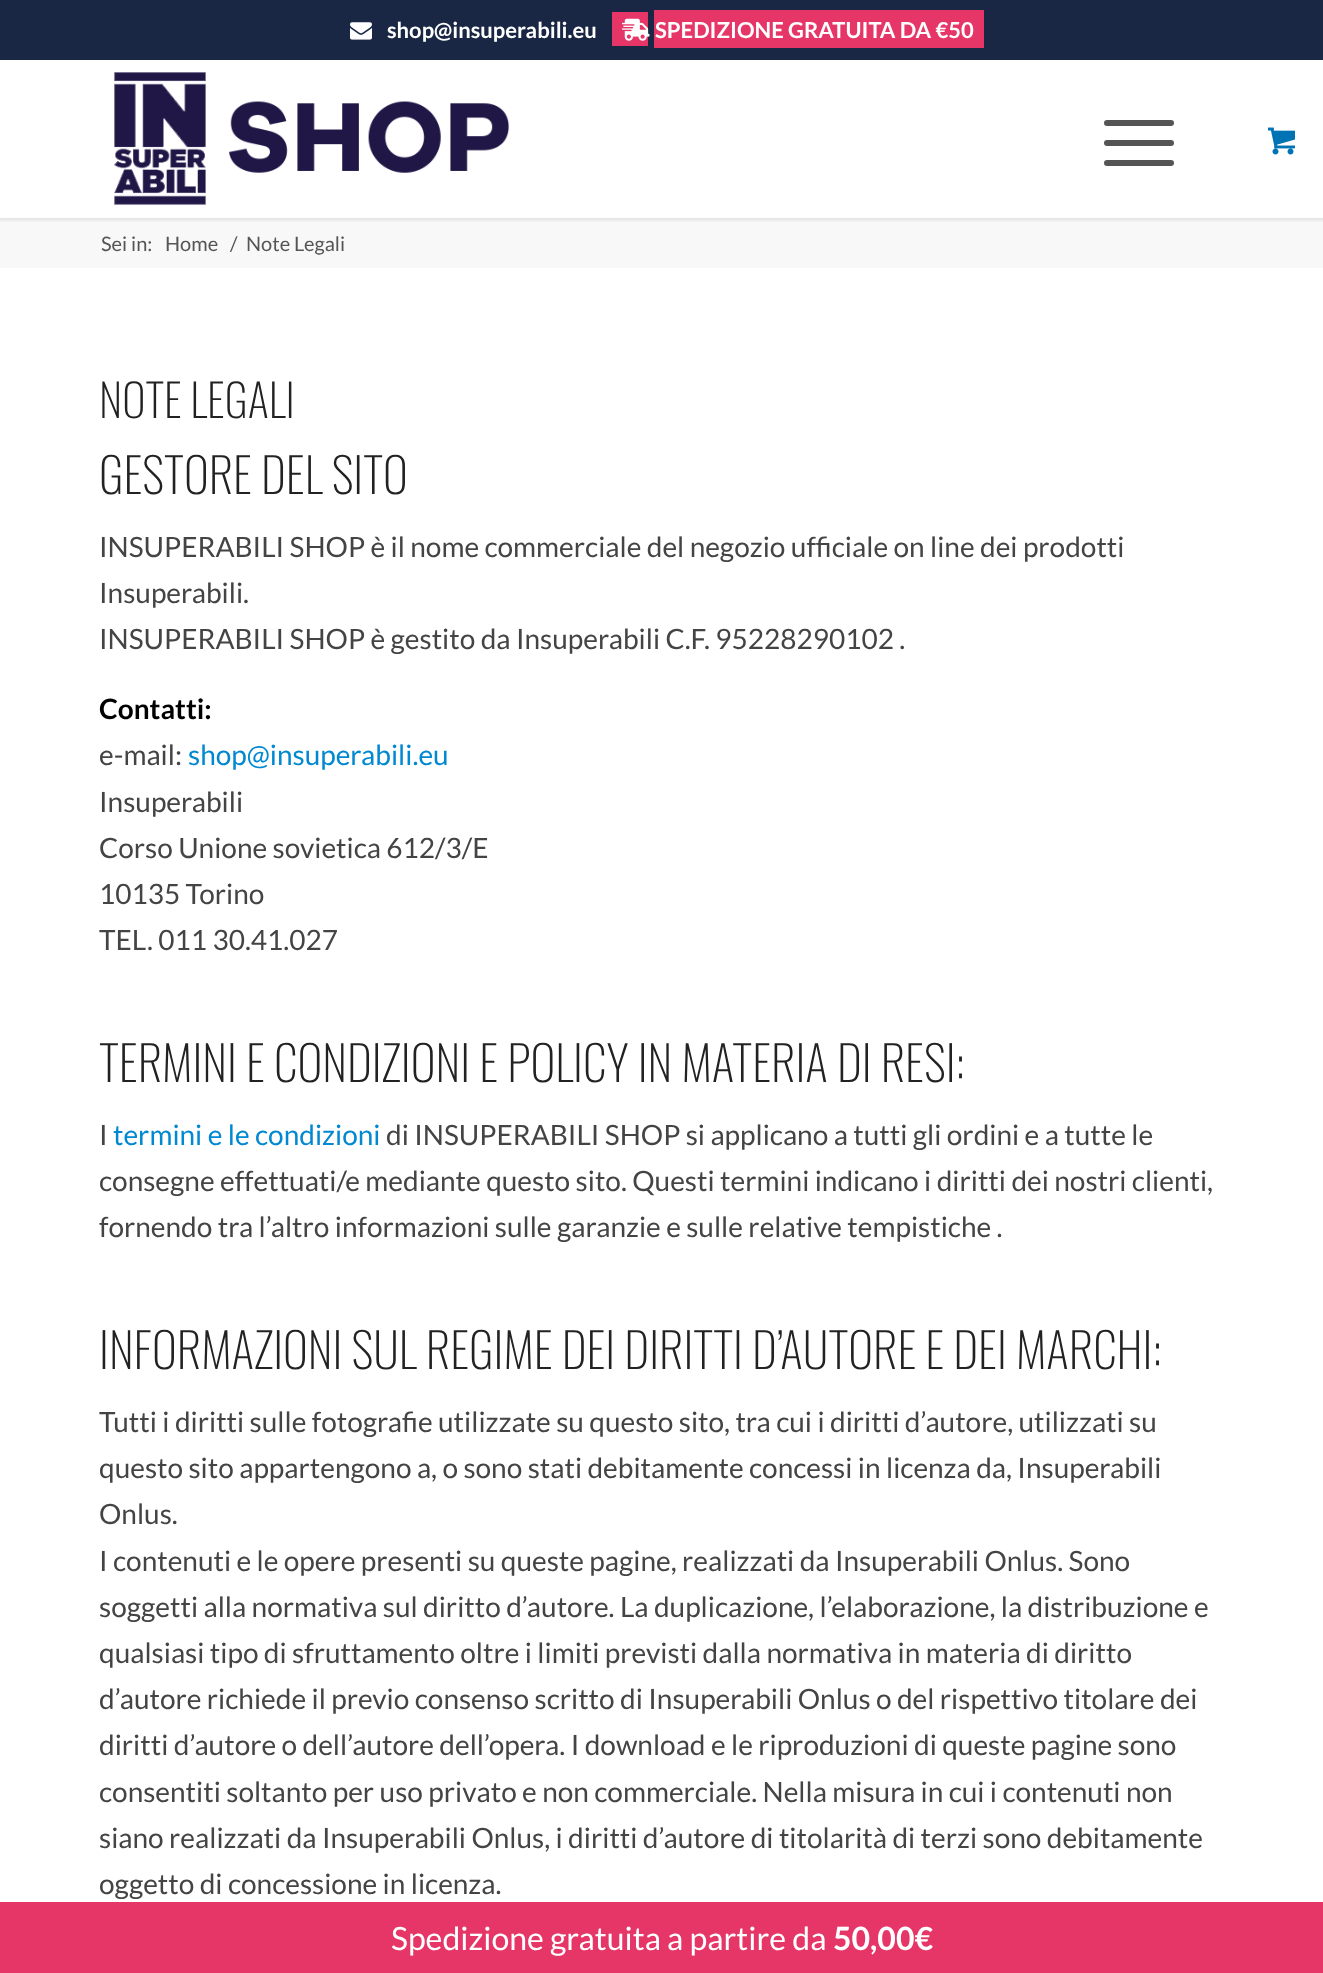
<svg xmlns="http://www.w3.org/2000/svg" width="1323" height="1973" viewBox="0 0 1323 1973">
  <defs>
    <clipPath id="clip1"><rect x="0" y="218" width="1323" height="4"/></clipPath>
  </defs>
  <rect width="100%" height="100%" fill="rgb(255,255,255)"/>
  <rect x="0" y="218" width="1323" height="50" fill="rgb(248,248,248)"/>
  <g clip-path="url(#clip1)">
    <rect x="-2" y="-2" width="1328" height="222" fill="rgba(0,0,0,0.1)" filter="blur(2px)"/>
  </g>
  <rect x="0" y="0" width="1323" height="60" fill="rgb(25,38,68)"/>
  <image x="350" y="22" width="22" height="18" href="pic1.png"/>
  <text x="387" y="38" font-family="Lato" font-size="22" font-weight="bold" fill="rgb(255,255,255)">shop@insuperabili.eu</text>
  <rect x="612" y="12" width="36" height="34" fill="rgb(230,53,103)"/>
  <rect x="654" y="10" width="330" height="38" fill="rgb(230,53,103)"/>
  <image x="622" y="18" width="28" height="23" href="pic2.png"/>
  <text x="655" y="38" font-family="Lato" font-size="22" font-weight="bold" fill="rgb(255,255,255)">SPEDIZIONE GRATUITA DA €50</text>
  <image x="114" y="72" width="396" height="133" href="pic3.png"/>
  <rect x="1104" y="140" width="70" height="6" rx="3" fill="rgb(85,85,85)"/>
  <rect x="1104" y="120" width="70" height="6" rx="3" fill="rgb(85,85,85)"/>
  <rect x="1104" y="160" width="70" height="6" rx="3" fill="rgb(85,85,85)"/>
  <image x="1268" y="127" width="27" height="28" href="pic4.png"/>
  <g font-family="Lato" font-size="20" fill="rgb(85,85,85)">
    <text x="101" y="251">Sei in:</text>
    <text x="165" y="251">Home</text>
    <text x="230" y="251">/</text>
    <text x="246" y="251">Note Legali</text>
  </g>
  <text x="99" y="418" font-family="Oswald" font-size="45" font-weight="200" fill="rgb(34,34,34)">NOTE LEGALI</text>
  <text x="99" y="494" font-family="Oswald" font-size="48" font-weight="200" fill="rgb(34,34,34)">GESTORE DEL SITO</text>
  <g font-family="Lato" font-size="28" fill="rgb(68,68,68)">
    <text>
      <tspan x="99" y="557">INSUPERABILI SHOP è il nome commerciale del negozio ufficiale on line dei prodotti</tspan>
      <tspan x="99" y="603">Insuperabili.</tspan>
      <tspan x="99" y="649">INSUPERABILI SHOP è gestito da Insuperabili C.F. 95228290102 .</tspan>
    </text>
  </g>
  <text x="99" y="719" font-family="Lato" font-size="28" font-weight="bold" fill="rgb(0,0,0)">Contatti:</text>
  <text x="99" y="765" font-family="Lato" font-size="28" fill="rgb(68,68,68)">e-mail:</text>
  <text x="188" y="765" font-family="Lato" font-size="28" fill="rgb(0,136,209)">shop@insuperabili.eu</text>
  <g font-family="Lato" font-size="28" fill="rgb(68,68,68)">
    <text>
      <tspan x="99" y="812">Insuperabili</tspan>
      <tspan x="99" y="858">Corso Unione sovietica 612/3/E</tspan>
      <tspan x="99" y="904">10135 Torino</tspan>
      <tspan x="99" y="950">TEL. 011 30.41.027</tspan>
    </text>
  </g>
  <text x="99" y="1082" font-family="Oswald" font-size="48" font-weight="200" fill="rgb(34,34,34)">TERMINI E CONDIZIONI E POLICY IN MATERIA DI RESI:</text>
  <text x="99" y="1145" font-family="Lato" font-size="28" fill="rgb(68,68,68)">I</text>
  <text x="113" y="1145" font-family="Lato" font-size="28" fill="rgb(0,136,209)">termini e le condizioni</text>
  <g font-family="Lato" font-size="28" fill="rgb(68,68,68)">
    <text x="386" y="1145">di INSUPERABILI SHOP si applicano a tutti gli ordini e a tutte le</text>
    <text>
      <tspan x="99" y="1191">consegne effettuati/e mediante questo sito. Questi termini indicano i diritti dei nostri clienti,</tspan>
      <tspan x="99" y="1237">fornendo tra l’altro informazioni sulle garanzie e sulle relative tempistiche .</tspan>
    </text>
  </g>
  <text x="99" y="1369" font-family="Oswald" font-size="48" font-weight="200" fill="rgb(34,34,34)">INFORMAZIONI SUL REGIME DEI DIRITTI D’AUTORE E DEI MARCHI:</text>
  <g font-family="Lato" font-size="28" fill="rgb(68,68,68)">
    <text>
      <tspan x="99" y="1432">Tutti i diritti sulle fotografie utilizzate su questo sito, tra cui i diritti d’autore, utilizzati su</tspan>
      <tspan x="99" y="1478">questo sito appartengono a, o sono stati debitamente concessi in licenza da, Insuperabili</tspan>
      <tspan x="99" y="1524">Onlus.</tspan>
      <tspan x="99" y="1571">I contenuti e le opere presenti su queste pagine, realizzati da Insuperabili Onlus. Sono</tspan>
      <tspan x="99" y="1617">soggetti alla normativa sul diritto d’autore. La duplicazione, l’elaborazione, la distribuzione e</tspan>
      <tspan x="99" y="1663">qualsiasi tipo di sfruttamento oltre i limiti previsti dalla normativa in materia di diritto</tspan>
      <tspan x="99" y="1709">d’autore richiede il previo consenso scritto di Insuperabili Onlus o del rispettivo titolare dei</tspan>
      <tspan x="99" y="1755">diritti d’autore o dell’autore dell’opera. I download e le riproduzioni di queste pagine sono</tspan>
      <tspan x="99" y="1802">consentiti soltanto per uso privato e non commerciale. Nella misura in cui i contenuti non</tspan>
      <tspan x="99" y="1848">siano realizzati da Insuperabili Onlus, i diritti d’autore di titolarità di terzi sono debitamente</tspan>
      <tspan x="99" y="1894">oggetto di concessione in licenza.</tspan>
    </text>
  </g>
  <rect x="0" y="1902" width="1323" height="71" fill="rgb(230,53,103)"/>
  <text x="391" y="1950" font-family="Lato" font-size="32" fill="rgb(255,255,255)">Spedizione gratuita a partire da</text>
  <text x="833" y="1950" font-family="Lato" font-size="32" font-weight="bold" fill="rgb(255,255,255)">50,00€</text>
</svg>
